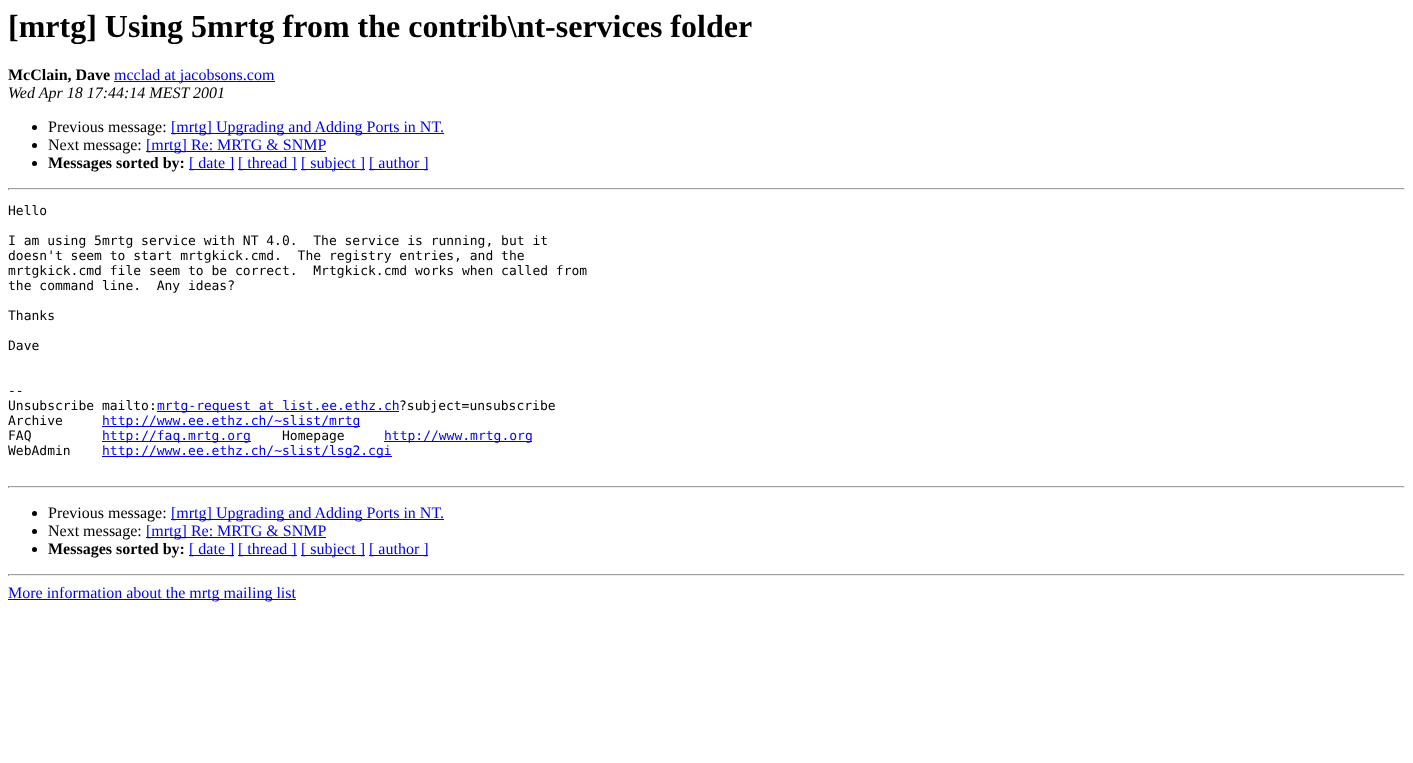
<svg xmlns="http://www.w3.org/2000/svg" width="1413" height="763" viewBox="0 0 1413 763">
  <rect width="100%" height="100%" fill="rgb(255,255,255)"/>
  <text x="8" y="37" font-family="Liberation Serif" font-size="32" font-weight="bold" fill="rgb(0,0,0)">[mrtg] Using 5mrtg from the contrib\nt-services folder</text>
  <text x="8" y="80" font-family="Liberation Serif" font-size="16" font-weight="bold" fill="rgb(0,0,0)">McClain, Dave</text>
  <rect x="114" y="81" width="161" height="1" fill="rgb(0,0,238)"/>
  <text x="114" y="80" font-family="Liberation Serif" font-size="16" fill="rgb(0,0,238)">mcclad at jacobsons.com</text>
  <text x="8" y="98" font-family="Liberation Serif" font-size="16" font-style="italic" fill="rgb(0,0,0)">Wed Apr 18 17:44:14 MEST 2001</text>
  <circle cx="34.5" cy="127.5" r="2.5" fill="rgb(0,0,0)"/>
  <text x="48" y="132" font-family="Liberation Serif" font-size="16" fill="rgb(0,0,0)">Previous message:</text>
  <rect x="171" y="133" width="273" height="1" fill="rgb(0,0,238)"/>
  <text x="171" y="132" font-family="Liberation Serif" font-size="16" fill="rgb(0,0,238)">[mrtg] Upgrading and Adding Ports in NT.</text>
  <circle cx="34.5" cy="145.5" r="2.5" fill="rgb(0,0,0)"/>
  <text x="48" y="150" font-family="Liberation Serif" font-size="16" fill="rgb(0,0,0)">Next message:</text>
  <rect x="146" y="151" width="180" height="1" fill="rgb(0,0,238)"/>
  <text x="146" y="150" font-family="Liberation Serif" font-size="16" fill="rgb(0,0,238)">[mrtg] Re: MRTG &amp; SNMP</text>
  <circle cx="34.5" cy="163.5" r="2.5" fill="rgb(0,0,0)"/>
  <text x="48" y="168" font-family="Liberation Serif" font-size="16" font-weight="bold" fill="rgb(0,0,0)">Messages sorted by:</text>
  <rect x="189" y="169" width="45" height="1" fill="rgb(0,0,238)"/>
  <text x="189" y="168" font-family="Liberation Serif" font-size="16" fill="rgb(0,0,238)">[ date ]</text>
  <rect x="238" y="169" width="59" height="1" fill="rgb(0,0,238)"/>
  <text x="238" y="168" font-family="Liberation Serif" font-size="16" fill="rgb(0,0,238)">[ thread ]</text>
  <rect x="301" y="169" width="64" height="1" fill="rgb(0,0,238)"/>
  <text x="301" y="168" font-family="Liberation Serif" font-size="16" fill="rgb(0,0,238)">[ subject ]</text>
  <rect x="369" y="169" width="59" height="1" fill="rgb(0,0,238)"/>
  <text x="369" y="168" font-family="Liberation Serif" font-size="16" fill="rgb(0,0,238)">[ author ]</text>
  <rect x="8" y="188" width="1397" height="1" fill="rgb(159,159,159)"/>
  <rect x="1404" y="188" width="1" height="2" fill="rgb(238,238,238)"/>
  <rect x="8" y="189" width="1397" height="1" fill="rgb(238,238,238)"/>
  <rect x="8" y="188" width="1" height="2" fill="rgb(159,159,159)"/>
  <g font-family="DejaVu Sans Mono" font-size="13" fill="rgb(0,0,0)">
    <text x="8" y="215">Hello</text>
    <text xml:space="preserve"><tspan x="8" y="245">I am using 5mrtg service with NT 4.0.  The service is running, but it</tspan><tspan x="8" y="260">doesn't seem to start mrtgkick.cmd.  The registry entries, and the</tspan><tspan x="8" y="275">mrtgkick.cmd file seem to be correct.  Mrtgkick.cmd works when called from</tspan><tspan x="8" y="290">the command line.  Any ideas?</tspan></text>
    <text x="8" y="320">Thanks</text>
    <text x="8" y="350">Dave</text>
    <text>
      <tspan x="8" y="395">--</tspan>
      <tspan x="8" y="410">Unsubscribe mailto:</tspan>
    </text>
  </g>
  <rect x="157" y="411" width="242" height="1" fill="rgb(0,0,238)"/>
  <text x="157" y="410" font-family="DejaVu Sans Mono" font-size="13" fill="rgb(0,0,238)">mrtg-request at list.ee.ethz.ch</text>
  <g font-family="DejaVu Sans Mono" font-size="13" fill="rgb(0,0,0)">
    <text x="399" y="410">?subject=unsubscribe</text>
    <text x="8" y="425">Archive</text>
  </g>
  <rect x="102" y="426" width="258" height="1" fill="rgb(0,0,238)"/>
  <text x="102" y="425" font-family="DejaVu Sans Mono" font-size="13" fill="rgb(0,0,238)">http://www.ee.ethz.ch/~slist/mrtg</text>
  <text x="8" y="440" font-family="DejaVu Sans Mono" font-size="13" fill="rgb(0,0,0)">FAQ</text>
  <rect x="102" y="441" width="149" height="1" fill="rgb(0,0,238)"/>
  <text x="102" y="440" font-family="DejaVu Sans Mono" font-size="13" fill="rgb(0,0,238)">http://faq.mrtg.org</text>
  <text x="282" y="440" font-family="DejaVu Sans Mono" font-size="13" fill="rgb(0,0,0)">Homepage</text>
  <rect x="384" y="441" width="148" height="1" fill="rgb(0,0,238)"/>
  <text x="384" y="440" font-family="DejaVu Sans Mono" font-size="13" fill="rgb(0,0,238)">http://www.mrtg.org</text>
  <text x="8" y="455" font-family="DejaVu Sans Mono" font-size="13" fill="rgb(0,0,0)">WebAdmin</text>
  <rect x="102" y="456" width="290" height="1" fill="rgb(0,0,238)"/>
  <text x="102" y="455" font-family="DejaVu Sans Mono" font-size="13" fill="rgb(0,0,238)">http://www.ee.ethz.ch/~slist/lsg2.cgi</text>
  <rect x="8" y="486" width="1397" height="1" fill="rgb(159,159,159)"/>
  <rect x="1404" y="486" width="1" height="2" fill="rgb(238,238,238)"/>
  <rect x="8" y="487" width="1397" height="1" fill="rgb(238,238,238)"/>
  <rect x="8" y="486" width="1" height="2" fill="rgb(159,159,159)"/>
  <circle cx="34.5" cy="513.5" r="2.5" fill="rgb(0,0,0)"/>
  <text x="48" y="518" font-family="Liberation Serif" font-size="16" fill="rgb(0,0,0)">Previous message:</text>
  <rect x="171" y="519" width="273" height="1" fill="rgb(0,0,238)"/>
  <text x="171" y="518" font-family="Liberation Serif" font-size="16" fill="rgb(0,0,238)">[mrtg] Upgrading and Adding Ports in NT.</text>
  <circle cx="34.5" cy="531.5" r="2.5" fill="rgb(0,0,0)"/>
  <text x="48" y="536" font-family="Liberation Serif" font-size="16" fill="rgb(0,0,0)">Next message:</text>
  <rect x="146" y="537" width="180" height="1" fill="rgb(0,0,238)"/>
  <text x="146" y="536" font-family="Liberation Serif" font-size="16" fill="rgb(0,0,238)">[mrtg] Re: MRTG &amp; SNMP</text>
  <circle cx="34.5" cy="549.5" r="2.5" fill="rgb(0,0,0)"/>
  <text x="48" y="554" font-family="Liberation Serif" font-size="16" font-weight="bold" fill="rgb(0,0,0)">Messages sorted by:</text>
  <rect x="189" y="555" width="45" height="1" fill="rgb(0,0,238)"/>
  <text x="189" y="554" font-family="Liberation Serif" font-size="16" fill="rgb(0,0,238)">[ date ]</text>
  <rect x="238" y="555" width="59" height="1" fill="rgb(0,0,238)"/>
  <text x="238" y="554" font-family="Liberation Serif" font-size="16" fill="rgb(0,0,238)">[ thread ]</text>
  <rect x="301" y="555" width="64" height="1" fill="rgb(0,0,238)"/>
  <text x="301" y="554" font-family="Liberation Serif" font-size="16" fill="rgb(0,0,238)">[ subject ]</text>
  <rect x="369" y="555" width="59" height="1" fill="rgb(0,0,238)"/>
  <text x="369" y="554" font-family="Liberation Serif" font-size="16" fill="rgb(0,0,238)">[ author ]</text>
  <rect x="8" y="574" width="1397" height="1" fill="rgb(159,159,159)"/>
  <rect x="1404" y="574" width="1" height="2" fill="rgb(238,238,238)"/>
  <rect x="8" y="575" width="1397" height="1" fill="rgb(238,238,238)"/>
  <rect x="8" y="574" width="1" height="2" fill="rgb(159,159,159)"/>
  <rect x="8" y="599" width="288" height="1" fill="rgb(0,0,238)"/>
  <text x="8" y="598" font-family="Liberation Serif" font-size="16" fill="rgb(0,0,238)">More information about the mrtg mailing list</text>
</svg>
